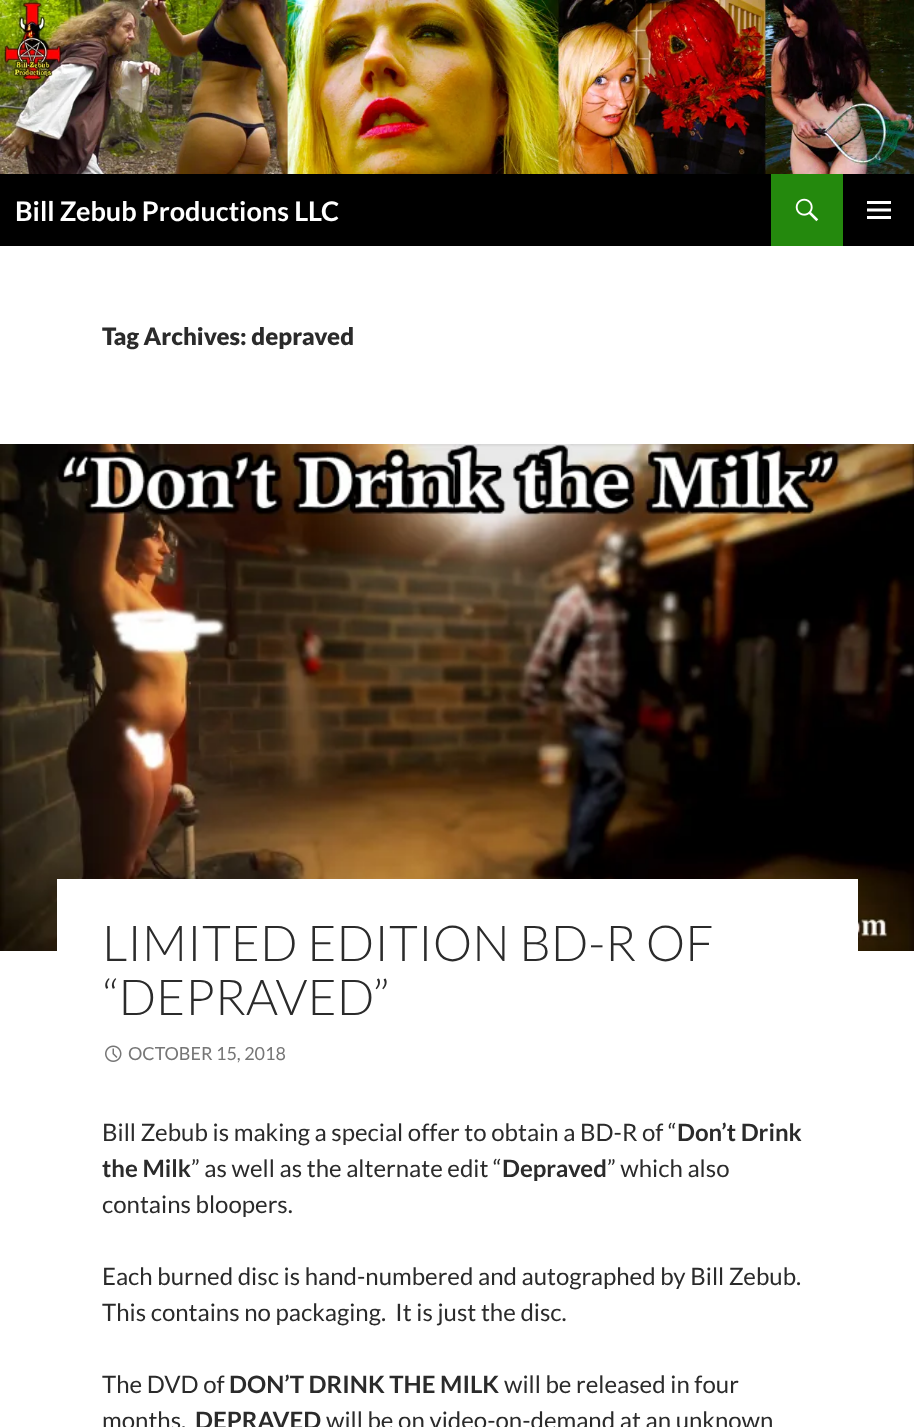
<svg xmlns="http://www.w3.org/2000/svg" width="914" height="1427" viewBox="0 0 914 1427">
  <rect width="100%" height="100%" fill="rgb(255,255,255)"/>
  <image x="0" y="0" width="914" height="174" href="pic1.png"/>
  <rect x="0" y="174" width="914" height="72" fill="rgb(0,0,0)"/>
  <text x="15" y="221" font-family="Lato" font-size="27" font-weight="bold" fill="rgb(255,255,255)">Bill Zebub Productions LLC</text>
  <rect x="771" y="174" width="72" height="72" fill="rgb(36,137,13)"/>
  <image x="795" y="198" width="24" height="24" href="pic2.png"/>
  <image x="867" y="201" width="24" height="18" href="pic3.png"/>
  <text x="102" y="345" font-family="Lato" font-size="24" font-weight="900" fill="rgb(43,43,43)">Tag Archives: depraved</text>
  <image x="0" y="444" width="914" height="507" href="pic4.png"/>
  <rect x="57" y="879" width="801" height="72" fill="rgb(255,255,255)"/>
  <g font-family="Lato" font-size="49.5" font-weight="300" fill="rgb(43,43,43)">
    <text>
      <tspan x="102" y="961">LIMITED EDITION BD-R OF</tspan>
      <tspan x="102" y="1015">“DEPRAVED”</tspan>
    </text>
  </g>
  <image x="105" y="1045" width="17" height="17" href="pic5.png"/>
  <text x="128" y="1060" font-family="Lato" font-size="18" fill="rgb(118,118,118)">OCTOBER 15, 2018</text>
  <text x="102" y="1141" font-family="Lato" font-size="24" fill="rgb(43,43,43)">Bill Zebub is making a special offer to obtain a BD-R of “</text>
  <g font-family="Lato" font-size="24" font-weight="bold" fill="rgb(43,43,43)">
    <text x="677" y="1141">Don’t Drink</text>
    <text x="102" y="1177">the Milk</text>
  </g>
  <text x="191" y="1177" font-family="Lato" font-size="24" fill="rgb(43,43,43)">” as well as the alternate edit “</text>
  <text x="502" y="1177" font-family="Lato" font-size="24" font-weight="bold" fill="rgb(43,43,43)">Depraved</text>
  <g font-family="Lato" font-size="24" fill="rgb(43,43,43)">
    <text x="607" y="1177">” which also</text>
    <text x="102" y="1213">contains bloopers.</text>
    <text xml:space="preserve"><tspan x="102" y="1285">Each burned disc is hand-numbered and autographed by Bill Zebub.</tspan><tspan x="102" y="1321">This contains no packaging.  It is just the disc.</tspan></text>
    <text x="102" y="1393">The DVD of</text>
  </g>
  <text x="229" y="1393" font-family="Lato" font-size="24" font-weight="bold" fill="rgb(43,43,43)">DON’T DRINK THE MILK</text>
  <g font-family="Lato" font-size="24" fill="rgb(43,43,43)">
    <text x="504" y="1393">will be released in four</text>
    <text x="102" y="1429">months.</text>
  </g>
  <text x="195" y="1429" font-family="Lato" font-size="24" font-weight="bold" fill="rgb(43,43,43)">DEPRAVED</text>
  <text x="326" y="1429" font-family="Lato" font-size="24" fill="rgb(43,43,43)">will be on video-on-demand at an unknown</text>
</svg>
